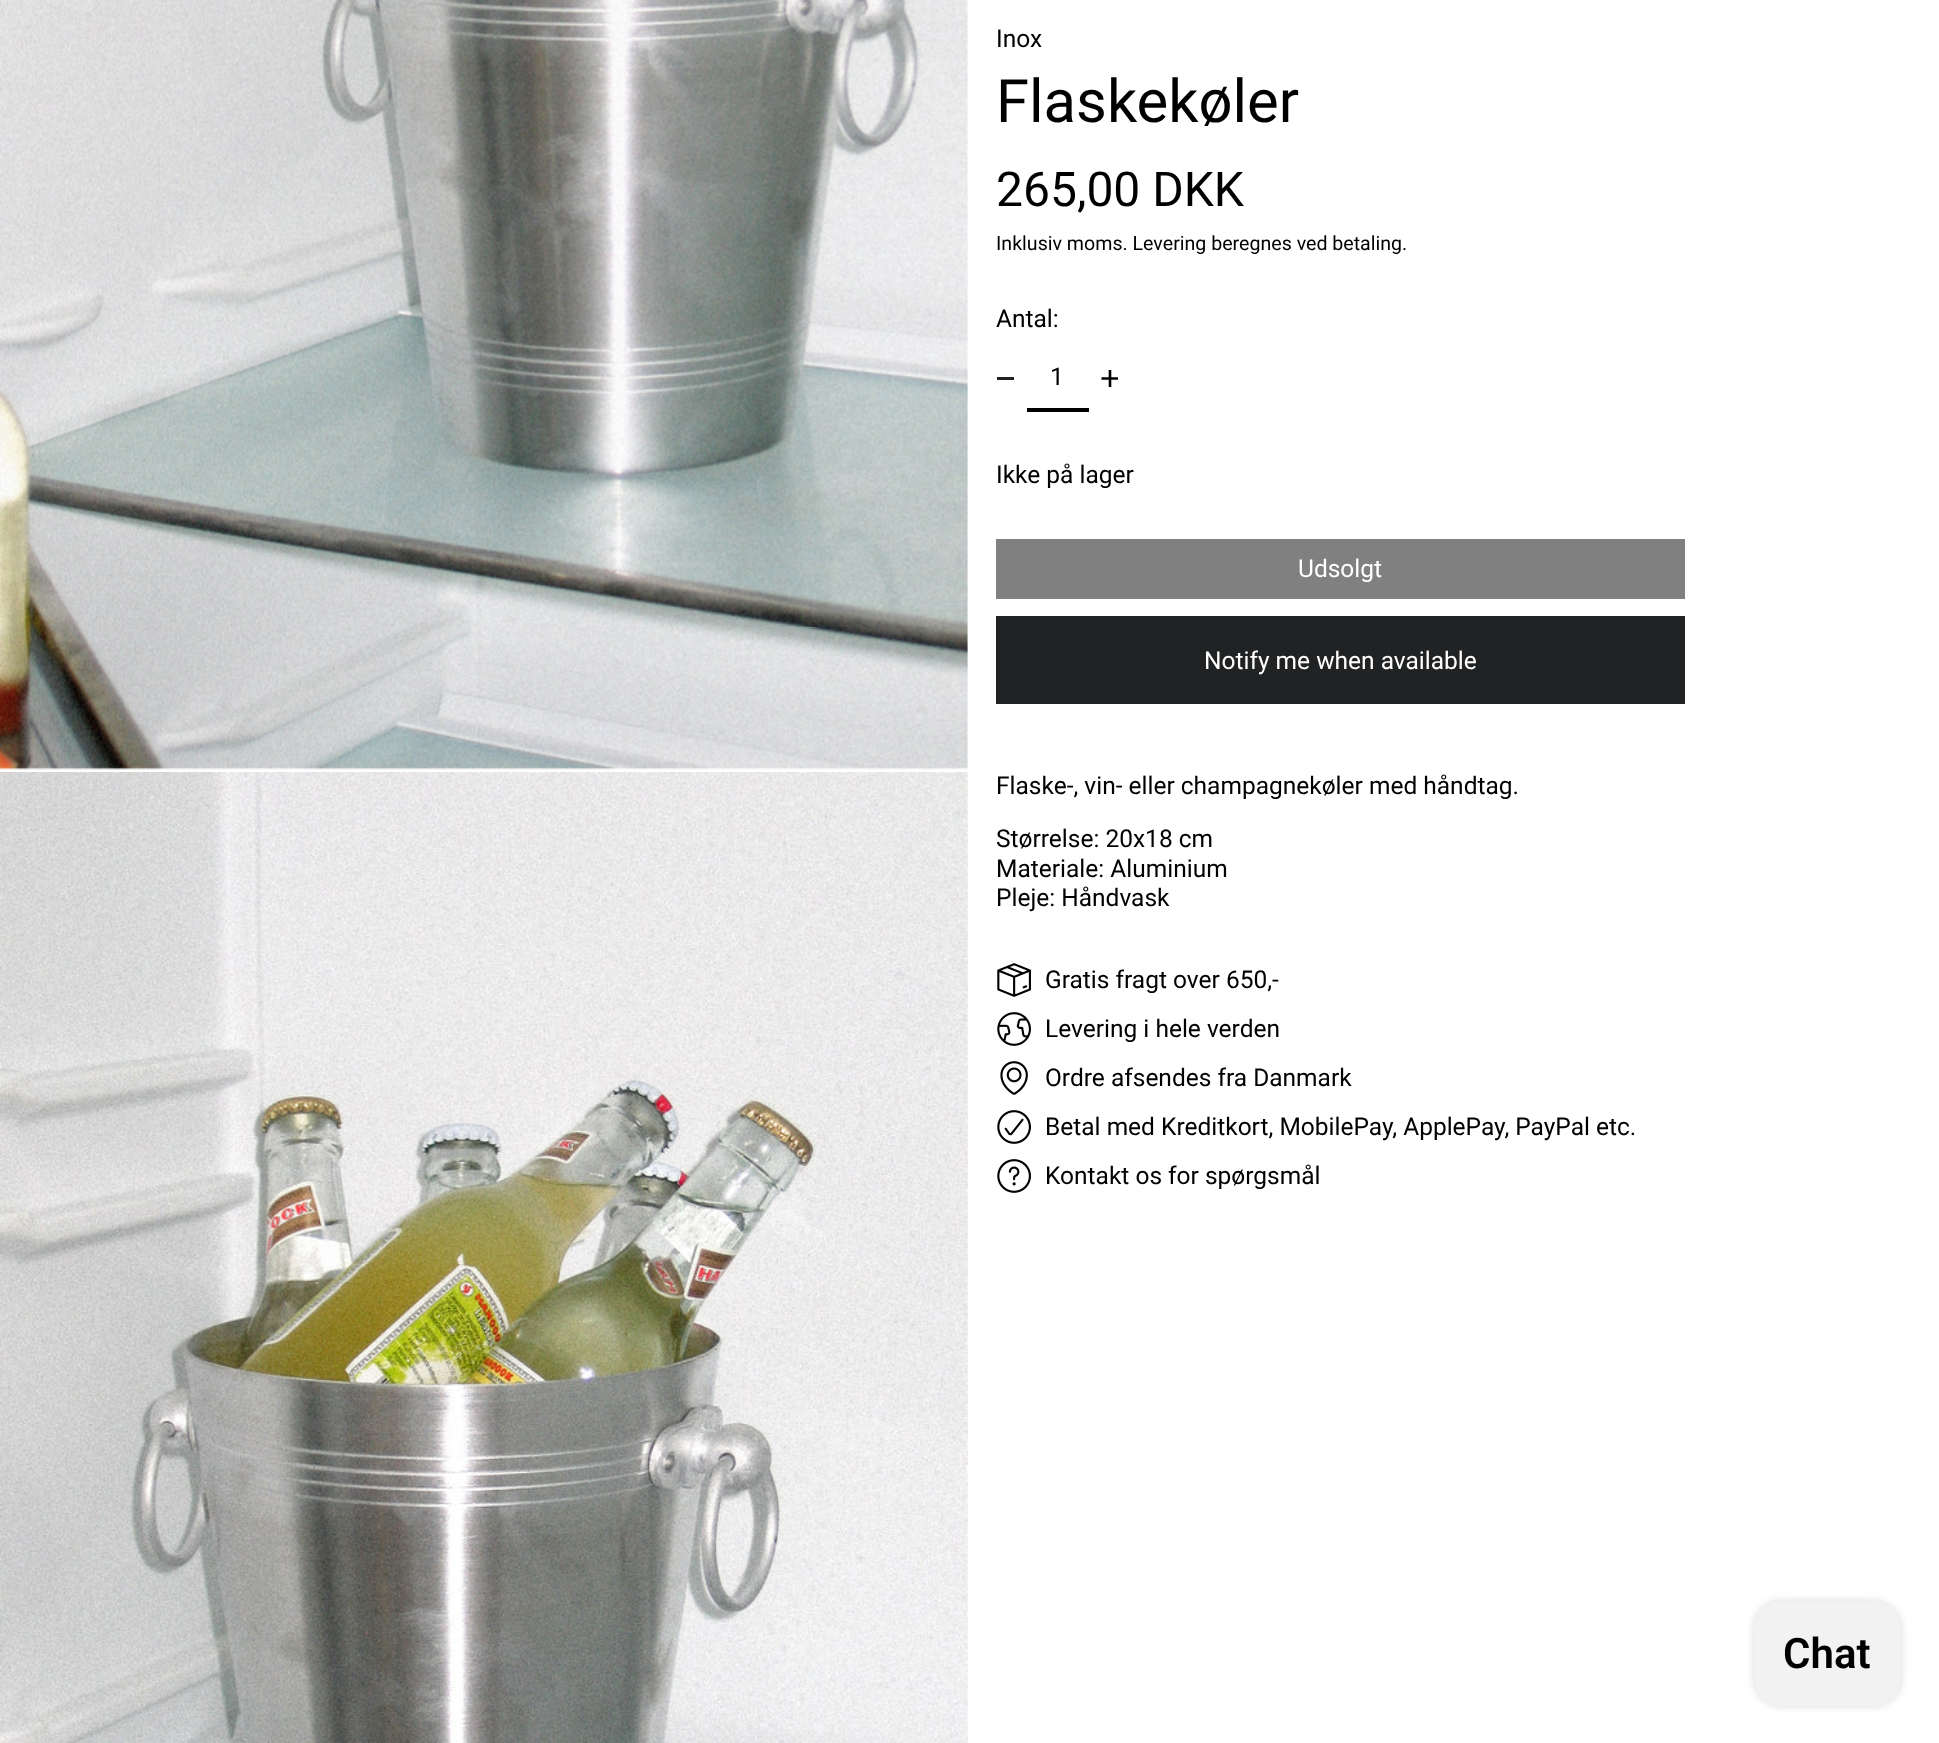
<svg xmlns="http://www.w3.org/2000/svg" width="1939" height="1743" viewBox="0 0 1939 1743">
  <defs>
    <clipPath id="clip1"><rect x="1101" y="369" width="17" height="20"/></clipPath>
  </defs>
  <rect width="100%" height="100%" fill="rgb(255,255,255)"/>
  <image x="0" y="0" width="968" height="770" href="pic1.png"/>
  <image x="0" y="772" width="968" height="971" href="pic2.png"/>
  <text x="996" y="47" font-family="Roboto" font-size="24.5" fill="rgb(0,0,0)">Inox</text>
  <text x="996" y="122" font-family="Roboto" font-size="59.75" fill="rgb(0,0,0)">Flaskekøler</text>
  <text x="996" y="206" font-family="Roboto" font-size="48" fill="rgb(0,0,0)">265,00 DKK</text>
  <text x="996" y="250" font-family="Roboto" font-size="19.6" fill="rgb(0,0,0)">Inklusiv moms. Levering beregnes ved betaling.</text>
  <text x="996" y="327" font-family="Roboto" font-size="24.5" fill="rgb(0,0,0)">Antal:</text>
  <rect x="997" y="377" width="17" height="3" fill="rgb(34,34,34)"/>
  <rect x="1027" y="408" width="62" height="4" fill="rgb(0,0,0)"/>
  <text x="1050" y="385" font-family="Roboto" font-size="24.5" fill="rgb(0,0,0)">1</text>
  <g clip-path="url(#clip1)">
    <path d="M1110 370V387M1101.5 378.5H1118.5" fill="none" stroke="rgb(0,0,0)" stroke-width="2.6"/>
  </g>
  <text x="996" y="483" font-family="Roboto" font-size="24.5" fill="rgb(0,0,0)">Ikke på lager</text>
  <rect x="996" y="539" width="689" height="60" fill="rgb(128,128,128)"/>
  <text x="1298" y="577" font-family="Roboto" font-size="24.5" fill="rgb(255,255,255)">Udsolgt</text>
  <rect x="996" y="616" width="689" height="88" fill="rgb(32,34,35)"/>
  <text x="1204" y="669" font-family="Roboto" font-size="24.5" fill="rgb(255,255,255)">Notify me when available</text>
  <g font-family="Roboto" font-size="24.5" fill="rgb(0,0,0)">
    <text x="996" y="794">Flaske-, vin- eller champagnekøler med håndtag.</text>
    <text>
      <tspan x="996" y="847">Størrelse: 20x18 cm</tspan>
      <tspan x="996" y="877">Materiale: Aluminium</tspan>
      <tspan x="996" y="906">Pleje: Håndvask</tspan>
    </text>
  </g>
  <image x="997" y="963" width="34" height="34" href="pic3.png"/>
  <text x="1045" y="988" font-family="Roboto" font-size="24.5" fill="rgb(0,0,0)">Gratis fragt over 650,-</text>
  <image x="997" y="1012" width="34" height="34" href="pic4.png"/>
  <text x="1045" y="1037" font-family="Roboto" font-size="24.5" fill="rgb(0,0,0)">Levering i hele verden</text>
  <image x="1000" y="1061" width="28" height="34" href="pic5.png"/>
  <text x="1045" y="1086" font-family="Roboto" font-size="24.5" fill="rgb(0,0,0)">Ordre afsendes fra Danmark</text>
  <image x="997" y="1110" width="34" height="34" href="pic6.png"/>
  <text x="1045" y="1135" font-family="Roboto" font-size="24.5" fill="rgb(0,0,0)">Betal med Kreditkort, MobilePay, ApplePay, PayPal etc.</text>
  <image x="997" y="1159" width="34" height="34" href="pic7.png"/>
  <text x="1045" y="1184" font-family="Roboto" font-size="24.5" fill="rgb(0,0,0)">Kontakt os for spørgsmål</text>
  <rect x="1754" y="1601" width="147" height="105" rx="28" fill="rgba(0,0,0,0.15)" filter="blur(4.5px)"/>
  <rect x="1754" y="1601" width="147" height="105" rx="28" fill="rgb(242,242,242)"/>
  <text x="1783" y="1668" font-family="Roboto" font-size="42" font-weight="600" fill="rgb(0,0,0)">Chat</text>
</svg>
